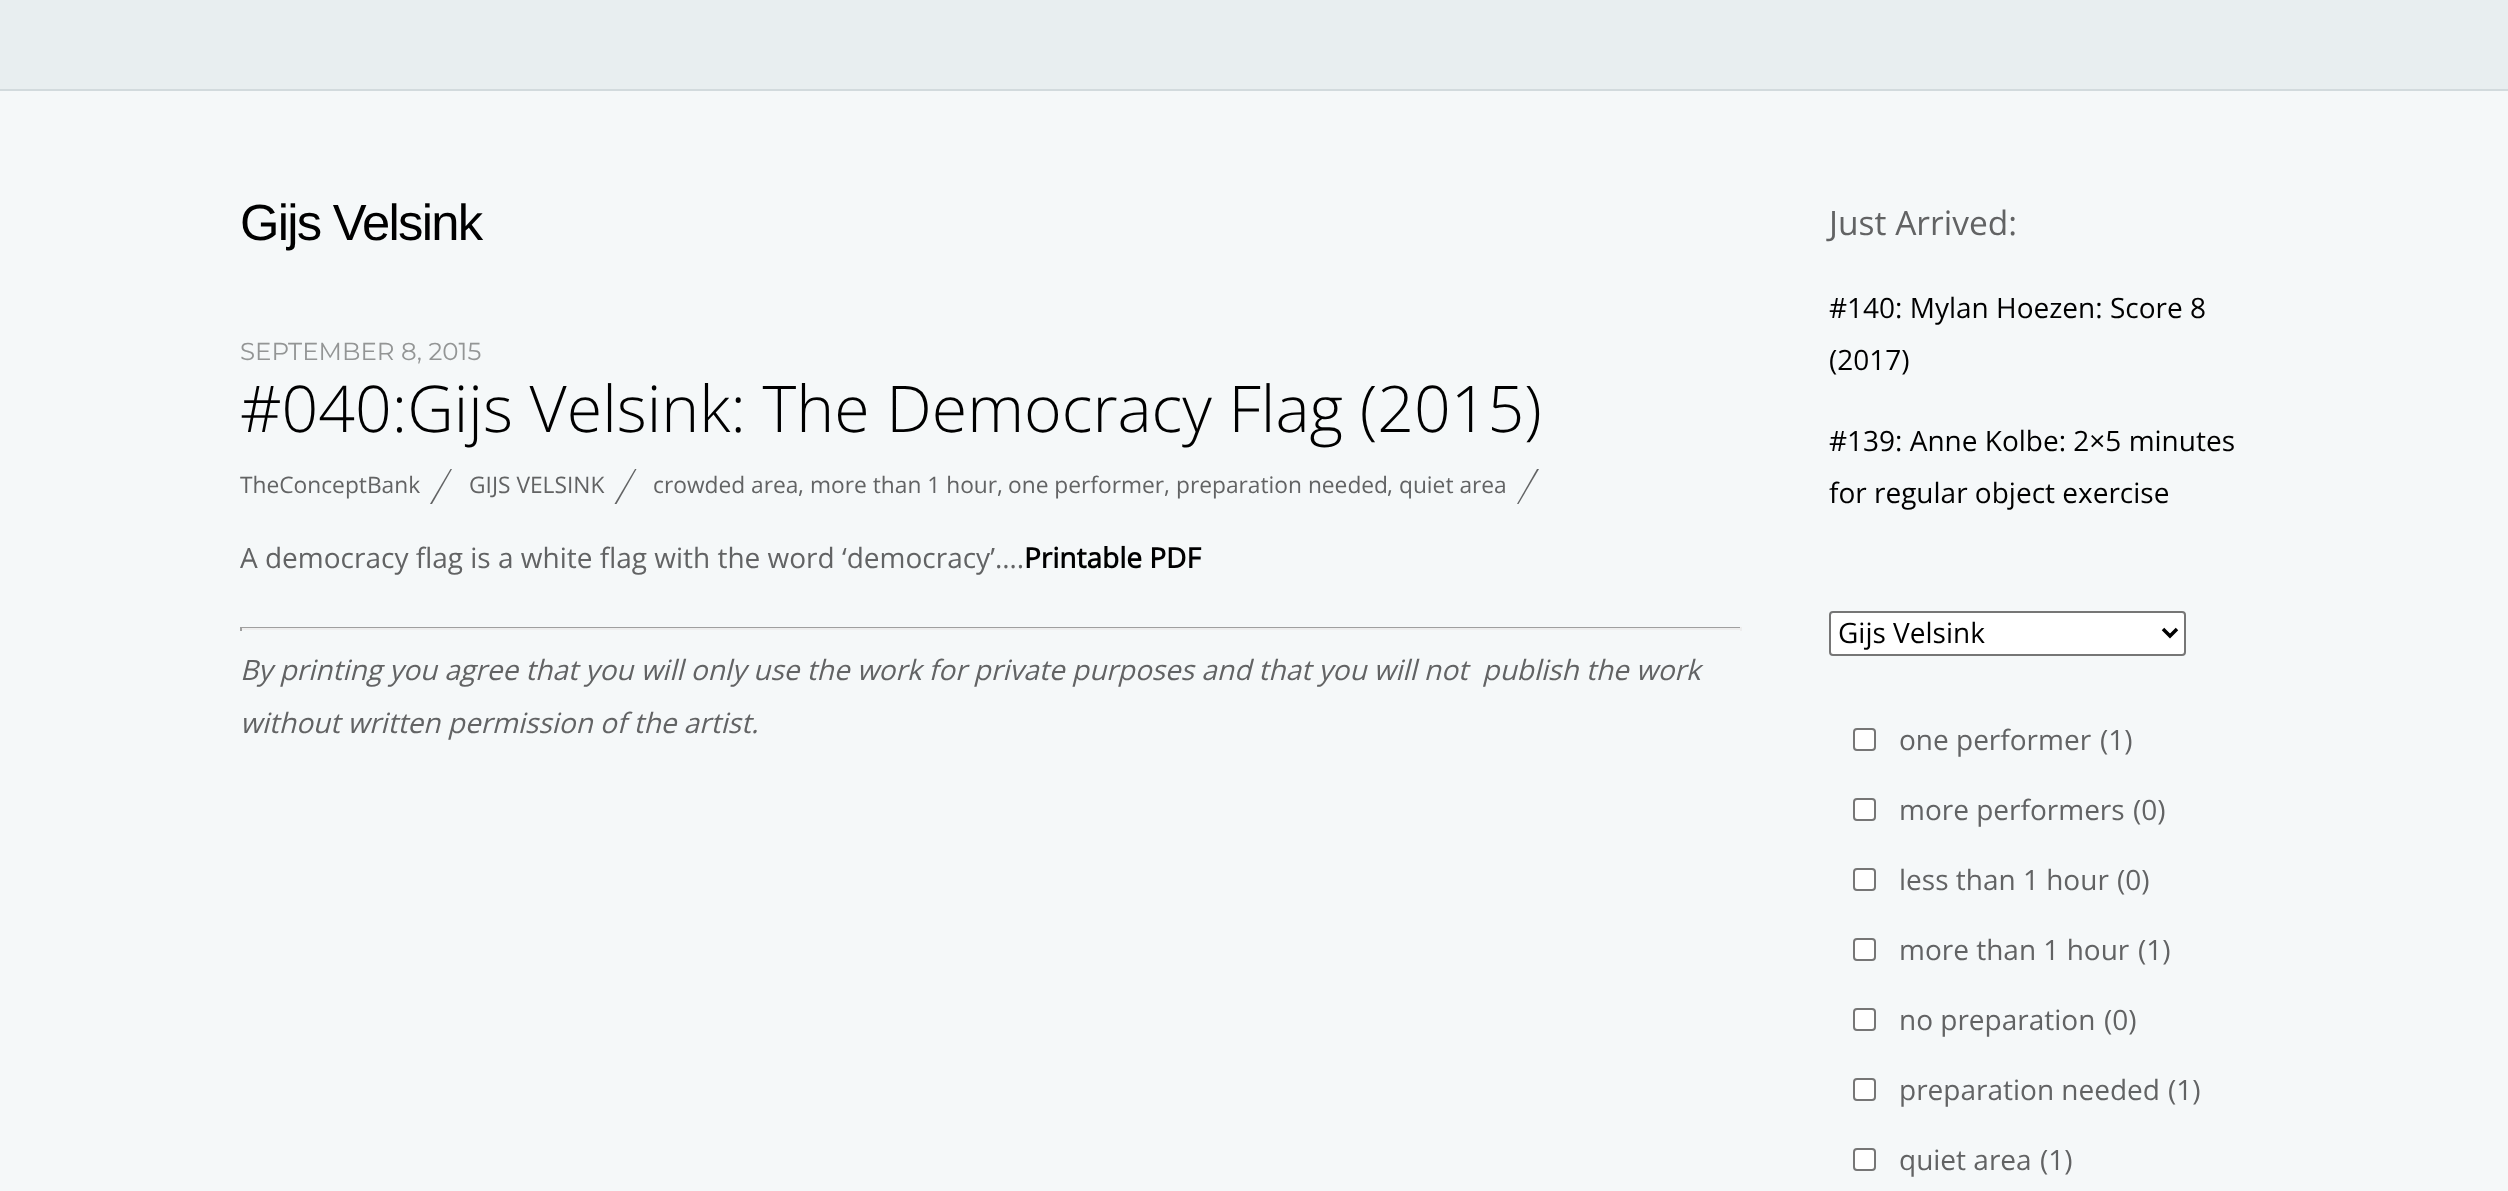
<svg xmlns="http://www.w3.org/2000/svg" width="2508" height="1191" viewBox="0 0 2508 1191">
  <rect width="100%" height="100%" fill="rgb(245,248,249)"/>
  <rect x="0" y="0" width="2508" height="89" fill="rgb(232,238,240)"/>
  <rect x="0" y="89" width="2508" height="2" fill="rgb(210,218,221)"/>
  <text x="240" y="240" font-family="Liberation Sans" font-size="50.75" letter-spacing="-1.75" fill="rgb(0,0,0)">Gijs Velsink</text>
  <text x="240" y="360" font-family="Montserrat" font-size="24.5" fill="rgb(147,149,149)">SEPTEMBER 8, 2015</text>
  <text x="240" y="432" font-family="Open Sans" font-size="64.4" font-weight="300" fill="rgb(0,0,0)">#040:Gijs Velsink: The Democracy Flag (2015)</text>
  <text x="240" y="493" font-family="Open Sans" font-size="22.75" fill="rgb(98,99,100)">TheConceptBank</text>
  <path d="M450.5 469H452L432 504H430Z" fill="rgb(98,99,100)"/>
  <text x="469" y="493" font-family="Open Sans" font-size="22.75" fill="rgb(98,99,100)">GIJS VELSINK</text>
  <path d="M635 469H636.5L616.5 504H614.5Z" fill="rgb(98,99,100)"/>
  <g font-family="Open Sans" font-size="22.75" fill="rgb(98,99,100)">
    <text x="653" y="493">crowded area</text>
    <text x="798" y="493">,</text>
    <text x="810" y="493">more than 1 hour</text>
    <text x="997" y="493">,</text>
    <text x="1008" y="493">one performer</text>
    <text x="1164" y="493">,</text>
    <text x="1176" y="493">preparation needed</text>
    <text x="1387" y="493">,</text>
    <text x="1399" y="493">quiet area</text>
  </g>
  <path d="M1537 469H1539L1518.5 504H1517Z" fill="rgb(98,99,100)"/>
  <text x="240" y="568" font-family="Open Sans" font-size="28" fill="rgb(98,99,100)">A democracy flag is a white flag with the word ‘democracy’….</text>
  <text x="1024" y="568" font-family="Open Sans" font-size="28" font-weight="bold" fill="rgb(0,0,0)">Printable PDF</text>
  <rect x="240" y="627" width="1501" height="1" fill="rgb(159,159,159)"/>
  <rect x="1740" y="627" width="2" height="4" fill="rgb(238,238,238)"/>
  <rect x="240" y="628" width="1501" height="2" fill="rgb(238,238,238)"/>
  <rect x="240" y="627" width="2" height="4" fill="rgb(159,159,159)"/>
  <g font-family="Open Sans" font-size="28" font-style="italic" fill="rgb(98,99,100)">
    <text xml:space="preserve"><tspan x="240" y="680">By printing you agree that you will only use the work for private purposes and that you will not  publish the work</tspan><tspan x="240" y="733">without written permission of the artist.</tspan></text>
  </g>
  <text x="1829" y="235" font-family="Open Sans" font-size="33.5" fill="rgb(98,99,100)">Just Arrived:</text>
  <g font-family="Open Sans" font-size="28" fill="rgb(0,0,0)">
    <text>
      <tspan x="1829" y="318">#140: Mylan Hoezen: Score 8</tspan>
      <tspan x="1829" y="370">(2017)</tspan>
    </text>
    <text>
      <tspan x="1829" y="451">#139: Anne Kolbe: 2×5 minutes</tspan>
      <tspan x="1829" y="503">for regular object exercise</tspan>
    </text>
  </g>
  <rect x="1830" y="612" width="355" height="43" rx="3" fill="rgb(255,255,255)" stroke="rgb(118,118,118)" stroke-width="2"/>
  <path d="M2163 629L2170 636L2177 629" fill="none" stroke="rgb(0,0,0)" stroke-width="3.5"/>
  <text x="1838" y="643" font-family="Open Sans" font-size="28" fill="rgb(0,0,0)">Gijs Velsink</text>
  <rect x="1854" y="729" width="21" height="21" rx="3" fill="rgb(255,255,255)" stroke="rgb(118,118,118)" stroke-width="2"/>
  <g font-family="Open Sans" font-size="28" fill="rgb(98,99,100)">
    <text x="1899" y="750">one performer</text>
    <text x="2100" y="750">(1)</text>
  </g>
  <rect x="1854" y="799" width="21" height="21" rx="3" fill="rgb(255,255,255)" stroke="rgb(118,118,118)" stroke-width="2"/>
  <g font-family="Open Sans" font-size="28" fill="rgb(98,99,100)">
    <text x="1899" y="820">more performers</text>
    <text x="2133" y="820">(0)</text>
  </g>
  <rect x="1854" y="869" width="21" height="21" rx="3" fill="rgb(255,255,255)" stroke="rgb(118,118,118)" stroke-width="2"/>
  <g font-family="Open Sans" font-size="28" fill="rgb(98,99,100)">
    <text x="1899" y="890">less than 1 hour</text>
    <text x="2117" y="890">(0)</text>
  </g>
  <rect x="1854" y="939" width="21" height="21" rx="3" fill="rgb(255,255,255)" stroke="rgb(118,118,118)" stroke-width="2"/>
  <g font-family="Open Sans" font-size="28" fill="rgb(98,99,100)">
    <text x="1899" y="960">more than 1 hour</text>
    <text x="2138" y="960">(1)</text>
  </g>
  <rect x="1854" y="1009" width="21" height="21" rx="3" fill="rgb(255,255,255)" stroke="rgb(118,118,118)" stroke-width="2"/>
  <g font-family="Open Sans" font-size="28" fill="rgb(98,99,100)">
    <text x="1899" y="1030">no preparation</text>
    <text x="2104" y="1030">(0)</text>
  </g>
  <rect x="1854" y="1079" width="21" height="21" rx="3" fill="rgb(255,255,255)" stroke="rgb(118,118,118)" stroke-width="2"/>
  <g font-family="Open Sans" font-size="28" fill="rgb(98,99,100)">
    <text x="1899" y="1100">preparation needed</text>
    <text x="2168" y="1100">(1)</text>
  </g>
  <rect x="1854" y="1149" width="21" height="21" rx="3" fill="rgb(255,255,255)" stroke="rgb(118,118,118)" stroke-width="2"/>
  <g font-family="Open Sans" font-size="28" fill="rgb(98,99,100)">
    <text x="1899" y="1170">quiet area</text>
    <text x="2040" y="1170">(1)</text>
  </g>
</svg>
